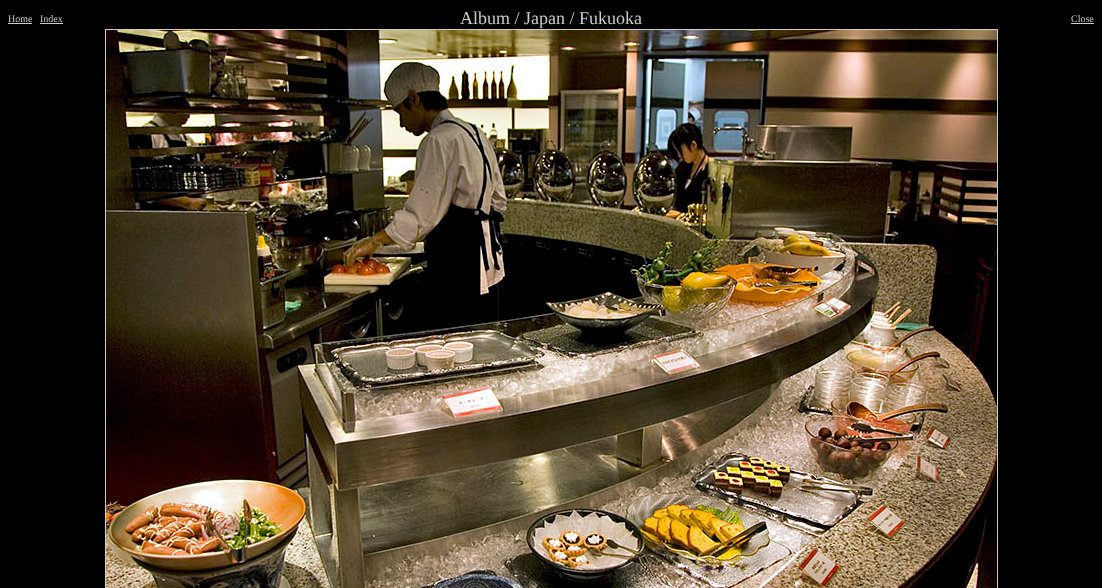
<svg xmlns="http://www.w3.org/2000/svg" width="1102" height="588" viewBox="0 0 1102 588">
  <rect width="100%" height="100%" fill="rgb(0,0,0)"/>
  <text x="8" y="22" font-family="Liberation Serif" font-size="10" fill="rgb(204,204,204)">Home</text>
  <rect x="8" y="23" width="24" height="1" fill="rgb(204,204,204)"/>
  <text x="40" y="22" font-family="Liberation Serif" font-size="10" fill="rgb(204,204,204)">Index</text>
  <rect x="40" y="23" width="23" height="1" fill="rgb(204,204,204)"/>
  <text x="460" y="24" font-family="Liberation Serif" font-size="18" fill="rgb(204,204,204)">Album / Japan / Fukuoka</text>
  <text x="1071" y="22" font-family="Liberation Serif" font-size="10" fill="rgb(204,204,204)">Close</text>
  <rect x="1071" y="23" width="23" height="1" fill="rgb(204,204,204)"/>
  <rect x="105.5" y="29.5" width="892" height="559" fill="none" stroke="rgb(204,204,204)"/>
  <image x="106" y="30" width="891" height="558" href="pic1.png"/>
</svg>
